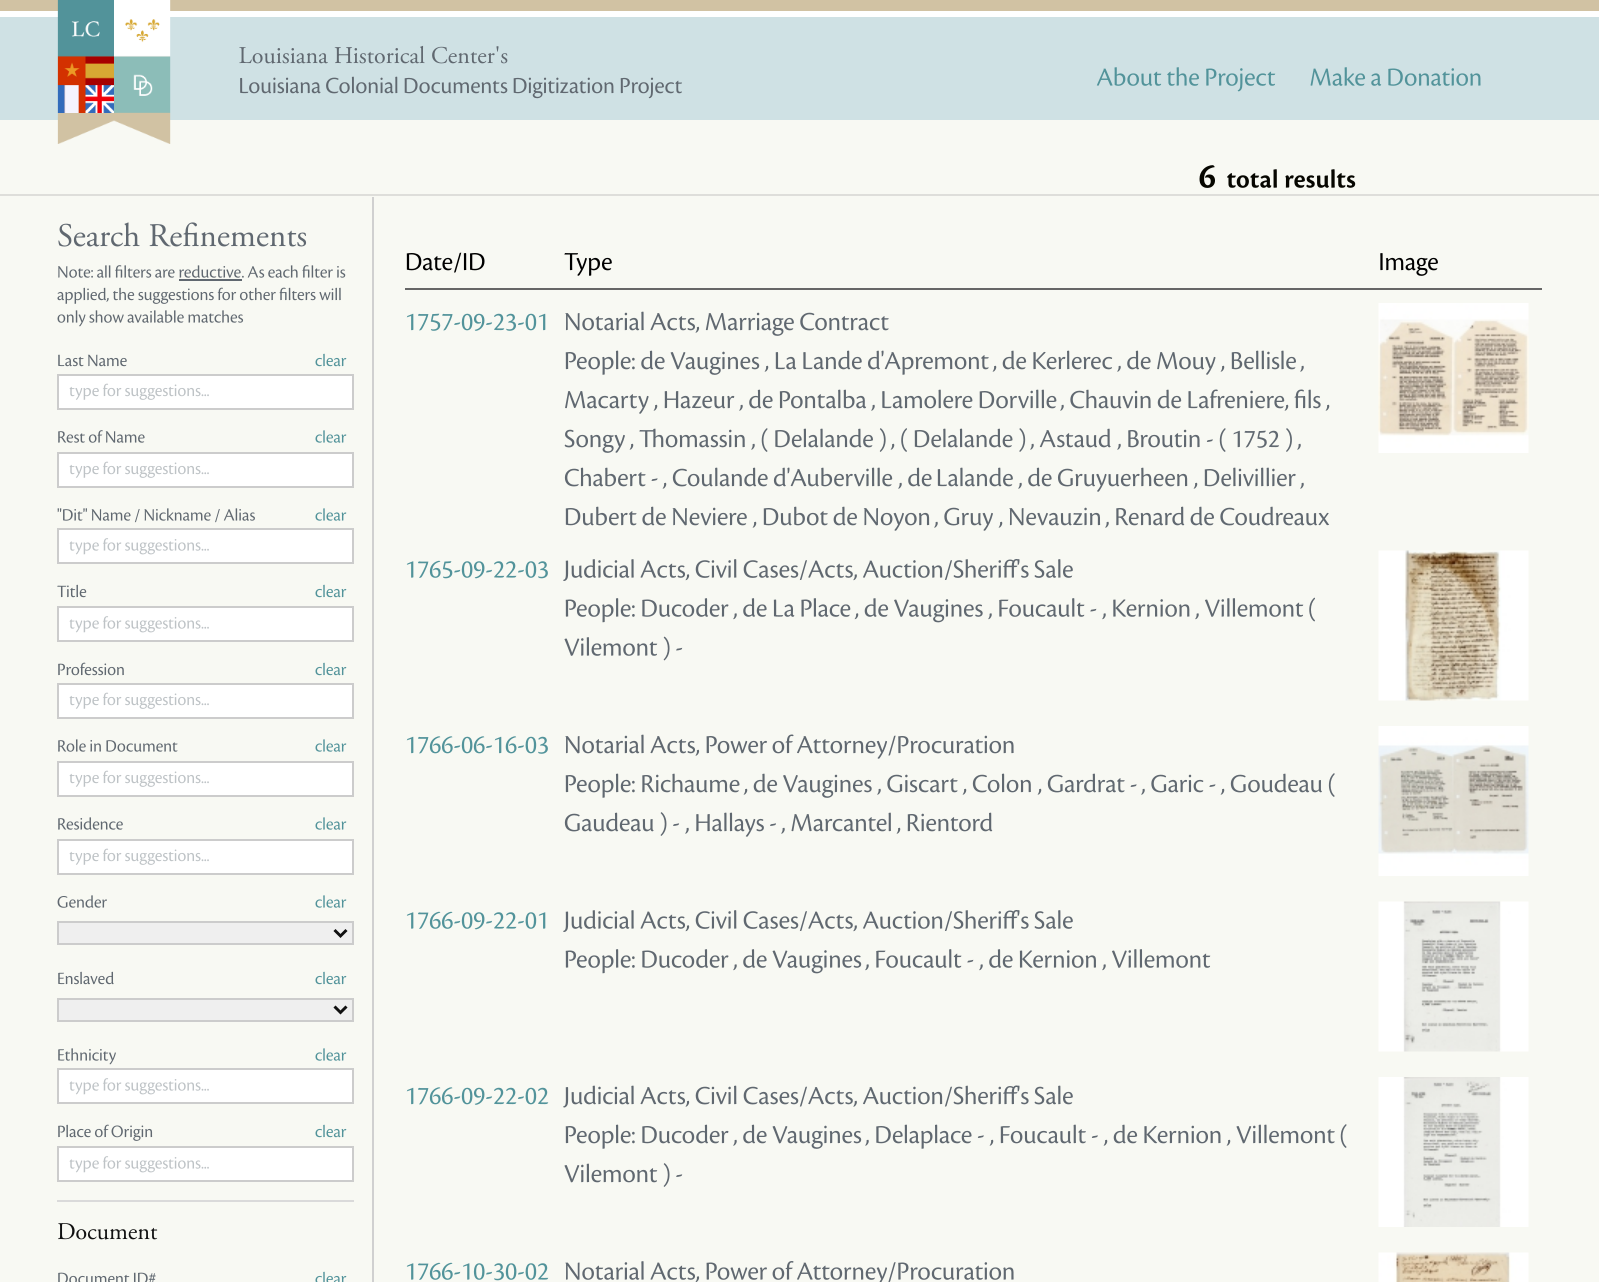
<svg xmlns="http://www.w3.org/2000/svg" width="1599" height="1282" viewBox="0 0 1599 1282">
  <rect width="100%" height="100%" fill="rgb(248,249,243)"/>
  <rect x="0" y="17" width="1599" height="103" fill="rgb(207,225,228)"/>
  <rect x="0" y="0" width="1599" height="11" fill="rgb(209,194,163)"/>
  <rect x="0" y="11" width="1599" height="6" fill="rgb(255,255,255)"/>
  <image x="57" y="0" width="114" height="144" href="pic1.png"/>
  <image x="239" y="45" width="269" height="19" href="pic2.png"/>
  <image x="240" y="76" width="442" height="23" href="pic3.png"/>
  <image x="1096" y="67" width="180" height="25" href="pic4.png"/>
  <image x="1310" y="67" width="171" height="19" href="pic5.png"/>
  <rect x="0" y="194" width="1599" height="2" fill="rgb(222,222,218)"/>
  <image x="1199" y="165" width="16" height="23" href="pic6.png"/>
  <image x="1227" y="169" width="129" height="19" href="pic7.png"/>
  <rect x="372" y="197" width="2" height="1085" fill="rgb(208,208,208)"/>
  <image x="58" y="222" width="249" height="25" href="pic8.png"/>
  <image x="58" y="265" width="117" height="13" href="pic9.png"/>
  <image x="179" y="265" width="62" height="13" href="pic10.png"/>
  <image x="242" y="265" width="104" height="13" href="pic11.png"/>
  <rect x="179" y="279" width="63" height="2" fill="rgb(96,104,112)"/>
  <image x="57" y="287" width="284" height="17" href="pic12.png"/>
  <image x="57" y="310" width="187" height="17" href="pic13.png"/>
  <image x="58" y="354" width="69" height="13" href="pic14.png"/>
  <image x="315" y="353" width="32" height="14" href="pic15.png"/>
  <rect x="58" y="375" width="295" height="34" fill="rgb(255,255,255)" stroke="rgb(204,204,204)" stroke-width="2"/>
  <image x="69" y="383" width="140" height="17" href="pic16.png"/>
  <image x="58" y="430" width="87" height="13" href="pic17.png"/>
  <image x="315" y="430" width="32" height="13" href="pic18.png"/>
  <rect x="58" y="453" width="295" height="34" fill="rgb(255,255,255)" stroke="rgb(204,204,204)" stroke-width="2"/>
  <image x="69" y="461" width="140" height="17" href="pic16.png"/>
  <image x="57" y="508" width="198" height="15" href="pic19.png"/>
  <image x="315" y="508" width="32" height="13" href="pic18.png"/>
  <rect x="58" y="529" width="295" height="34" fill="rgb(255,255,255)" stroke="rgb(204,204,204)" stroke-width="2"/>
  <image x="69" y="538" width="140" height="17" href="pic20.png"/>
  <image x="57" y="584" width="30" height="14" href="pic21.png"/>
  <image x="315" y="584" width="32" height="14" href="pic15.png"/>
  <rect x="58" y="607" width="295" height="34" fill="rgb(255,255,255)" stroke="rgb(204,204,204)" stroke-width="2"/>
  <image x="69" y="616" width="140" height="17" href="pic20.png"/>
  <image x="58" y="662" width="66" height="14" href="pic22.png"/>
  <image x="315" y="662" width="32" height="14" href="pic15.png"/>
  <rect x="58" y="684" width="295" height="34" fill="rgb(255,255,255)" stroke="rgb(204,204,204)" stroke-width="2"/>
  <image x="69" y="692" width="140" height="17" href="pic16.png"/>
  <image x="58" y="739" width="120" height="13" href="pic23.png"/>
  <image x="315" y="739" width="32" height="13" href="pic18.png"/>
  <rect x="58" y="762" width="295" height="34" fill="rgb(255,255,255)" stroke="rgb(204,204,204)" stroke-width="2"/>
  <image x="69" y="770" width="140" height="17" href="pic16.png"/>
  <image x="58" y="817" width="65" height="13" href="pic24.png"/>
  <image x="315" y="817" width="32" height="13" href="pic18.png"/>
  <rect x="58" y="840" width="295" height="34" fill="rgb(255,255,255)" stroke="rgb(204,204,204)" stroke-width="2"/>
  <image x="69" y="848" width="140" height="17" href="pic16.png"/>
  <image x="57" y="895" width="50" height="13" href="pic25.png"/>
  <image x="315" y="895" width="32" height="13" href="pic18.png"/>
  <rect x="58" y="922" width="295" height="22" fill="rgb(239,239,239)" stroke="rgb(204,204,204)" stroke-width="2"/>
  <path d="M334.5 930L340.5 936L346.5 930" fill="none" stroke="rgb(17,17,17)" stroke-width="3"/>
  <image x="58" y="971" width="56" height="14" href="pic26.png"/>
  <image x="315" y="971" width="32" height="14" href="pic15.png"/>
  <rect x="58" y="999" width="295" height="22" fill="rgb(239,239,239)" stroke="rgb(204,204,204)" stroke-width="2"/>
  <path d="M334.5 1006.5L340.5 1012.5L346.5 1006.5" fill="none" stroke="rgb(17,17,17)" stroke-width="3"/>
  <image x="58" y="1048" width="58" height="17" href="pic27.png"/>
  <image x="315" y="1048" width="32" height="13" href="pic18.png"/>
  <rect x="58" y="1069" width="295" height="34" fill="rgb(255,255,255)" stroke="rgb(204,204,204)" stroke-width="2"/>
  <image x="69" y="1078" width="140" height="17" href="pic20.png"/>
  <image x="58" y="1124" width="95" height="17" href="pic28.png"/>
  <image x="315" y="1124" width="32" height="14" href="pic15.png"/>
  <rect x="58" y="1147" width="295" height="34" fill="rgb(255,255,255)" stroke="rgb(204,204,204)" stroke-width="2"/>
  <image x="69" y="1156" width="140" height="17" href="pic20.png"/>
  <rect x="57" y="1200" width="297" height="2" fill="rgb(218,218,218)"/>
  <image x="58" y="1223" width="100" height="17" href="pic29.png"/>
  <image x="58" y="1272" width="98" height="10" href="pic30.png"/>
  <image x="315" y="1271" width="32" height="11" href="pic31.png"/>
  <image x="406" y="252" width="79" height="21" href="pic32.png"/>
  <rect x="405" y="288" width="1137" height="2" fill="rgb(102,102,102)"/>
  <image x="1380" y="253" width="58" height="23" href="pic33.png"/>
  <image x="564" y="253" width="48" height="23" href="pic34.png"/>
  <image x="406" y="313" width="140" height="18" href="pic35.png"/>
  <image x="565" y="311" width="324" height="25" href="pic36.png"/>
  <image x="565" y="350" width="70" height="25" href="pic37.png"/>
  <image x="641" y="350" width="119" height="25" href="pic38.png"/>
  <image x="764" y="350" width="225" height="25" href="pic39.png"/>
  <image x="992" y="350" width="121" height="22" href="pic40.png"/>
  <image x="1117" y="350" width="99" height="25" href="pic41.png"/>
  <image x="1220" y="350" width="76" height="22" href="pic42.png"/>
  <image x="1300" y="365" width="4" height="7" href="pic43.png"/>
  <image x="565" y="391" width="84" height="23" href="pic44.png"/>
  <image x="653" y="391" width="82" height="20" href="pic45.png"/>
  <image x="739" y="389" width="128" height="22" href="pic46.png"/>
  <image x="871" y="389" width="186" height="22" href="pic47.png"/>
  <image x="1060" y="389" width="261" height="22" href="pic48.png"/>
  <image x="1325" y="404" width="5" height="7" href="pic49.png"/>
  <image x="564" y="429" width="61" height="24" href="pic50.png"/>
  <image x="629" y="428" width="116" height="22" href="pic51.png"/>
  <image x="751" y="428" width="135" height="24" href="pic52.png"/>
  <image x="890" y="428" width="136" height="24" href="pic53.png"/>
  <image x="1030" y="428" width="81" height="22" href="pic54.png"/>
  <image x="1117" y="428" width="175" height="24" href="pic55.png"/>
  <image x="1297" y="443" width="4" height="7" href="pic43.png"/>
  <image x="564" y="467" width="94" height="20" href="pic56.png"/>
  <image x="662" y="467" width="231" height="22" href="pic57.png"/>
  <image x="898" y="467" width="34" height="22" href="pic58.png"/>
  <image x="937" y="467" width="76" height="20" href="pic59.png"/>
  <image x="1018" y="467" width="170" height="25" href="pic60.png"/>
  <image x="1193" y="467" width="103" height="22" href="pic61.png"/>
  <image x="1300" y="482" width="4" height="7" href="pic43.png"/>
  <image x="565" y="506" width="182" height="20" href="pic62.png"/>
  <image x="752" y="506" width="178" height="25" href="pic63.png"/>
  <image x="934" y="507" width="59" height="24" href="pic64.png"/>
  <image x="998" y="507" width="103" height="21" href="pic65.png"/>
  <image x="1105" y="506" width="225" height="22" href="pic66.png"/>
  <image x="1378" y="303" width="151" height="150" href="pic67.png"/>
  <image x="406" y="560" width="142" height="19" href="pic68.png"/>
  <image x="563" y="559" width="510" height="22" href="pic69.png"/>
  <image x="565" y="598" width="70" height="25" href="pic70.png"/>
  <image x="642" y="598" width="87" height="19" href="pic71.png"/>
  <image x="733" y="598" width="118" height="22" href="pic72.png"/>
  <image x="854" y="598" width="129" height="25" href="pic73.png"/>
  <image x="988" y="598" width="109" height="22" href="pic74.png"/>
  <image x="1102" y="599" width="88" height="21" href="pic75.png"/>
  <image x="1195" y="598" width="109" height="22" href="pic76.png"/>
  <image x="1309" y="597" width="6" height="25" href="pic77.png"/>
  <image x="564" y="636" width="119" height="25" href="pic78.png"/>
  <image x="1378" y="550" width="151" height="151" href="pic79.png"/>
  <image x="406" y="736" width="142" height="18" href="pic80.png"/>
  <image x="565" y="734" width="449" height="25" href="pic81.png"/>
  <image x="565" y="773" width="70" height="25" href="pic37.png"/>
  <image x="642" y="773" width="98" height="20" href="pic82.png"/>
  <image x="743" y="773" width="129" height="25" href="pic83.png"/>
  <image x="877" y="774" width="81" height="21" href="pic84.png"/>
  <image x="962" y="773" width="69" height="22" href="pic85.png"/>
  <image x="1037" y="773" width="100" height="22" href="pic86.png"/>
  <image x="1141" y="774" width="75" height="21" href="pic87.png"/>
  <image x="1220" y="773" width="115" height="24" href="pic88.png"/>
  <image x="564" y="812" width="116" height="24" href="pic89.png"/>
  <image x="685" y="812" width="91" height="25" href="pic90.png"/>
  <image x="781" y="812" width="110" height="22" href="pic91.png"/>
  <image x="896" y="812" width="97" height="22" href="pic92.png"/>
  <image x="1378" y="726" width="151" height="150" href="pic93.png"/>
  <image x="406" y="911" width="140" height="19" href="pic94.png"/>
  <image x="563" y="910" width="510" height="22" href="pic69.png"/>
  <image x="565" y="949" width="70" height="25" href="pic70.png"/>
  <image x="642" y="949" width="87" height="19" href="pic71.png"/>
  <image x="733" y="949" width="129" height="25" href="pic95.png"/>
  <image x="865" y="949" width="109" height="22" href="pic74.png"/>
  <image x="979" y="949" width="117" height="22" href="pic96.png"/>
  <image x="1102" y="949" width="109" height="22" href="pic76.png"/>
  <image x="1378" y="901" width="151" height="151" href="pic97.png"/>
  <image x="406" y="1087" width="143" height="18" href="pic98.png"/>
  <image x="563" y="1085" width="510" height="23" href="pic99.png"/>
  <image x="565" y="1124" width="70" height="25" href="pic37.png"/>
  <image x="642" y="1124" width="87" height="20" href="pic100.png"/>
  <image x="733" y="1124" width="129" height="25" href="pic101.png"/>
  <image x="865" y="1124" width="119" height="25" href="pic102.png"/>
  <image x="989" y="1124" width="109" height="22" href="pic103.png"/>
  <image x="1103" y="1124" width="118" height="22" href="pic104.png"/>
  <image x="1226" y="1124" width="109" height="22" href="pic105.png"/>
  <image x="1340" y="1124" width="7" height="24" href="pic106.png"/>
  <image x="564" y="1163" width="119" height="24" href="pic107.png"/>
  <image x="1378" y="1077" width="151" height="150" href="pic108.png"/>
  <image x="406" y="1262" width="143" height="19" href="pic109.png"/>
  <image x="565" y="1261" width="449" height="21" href="pic110.png"/>
  <image x="1378" y="1252" width="151" height="30" href="pic111.png"/>
</svg>
